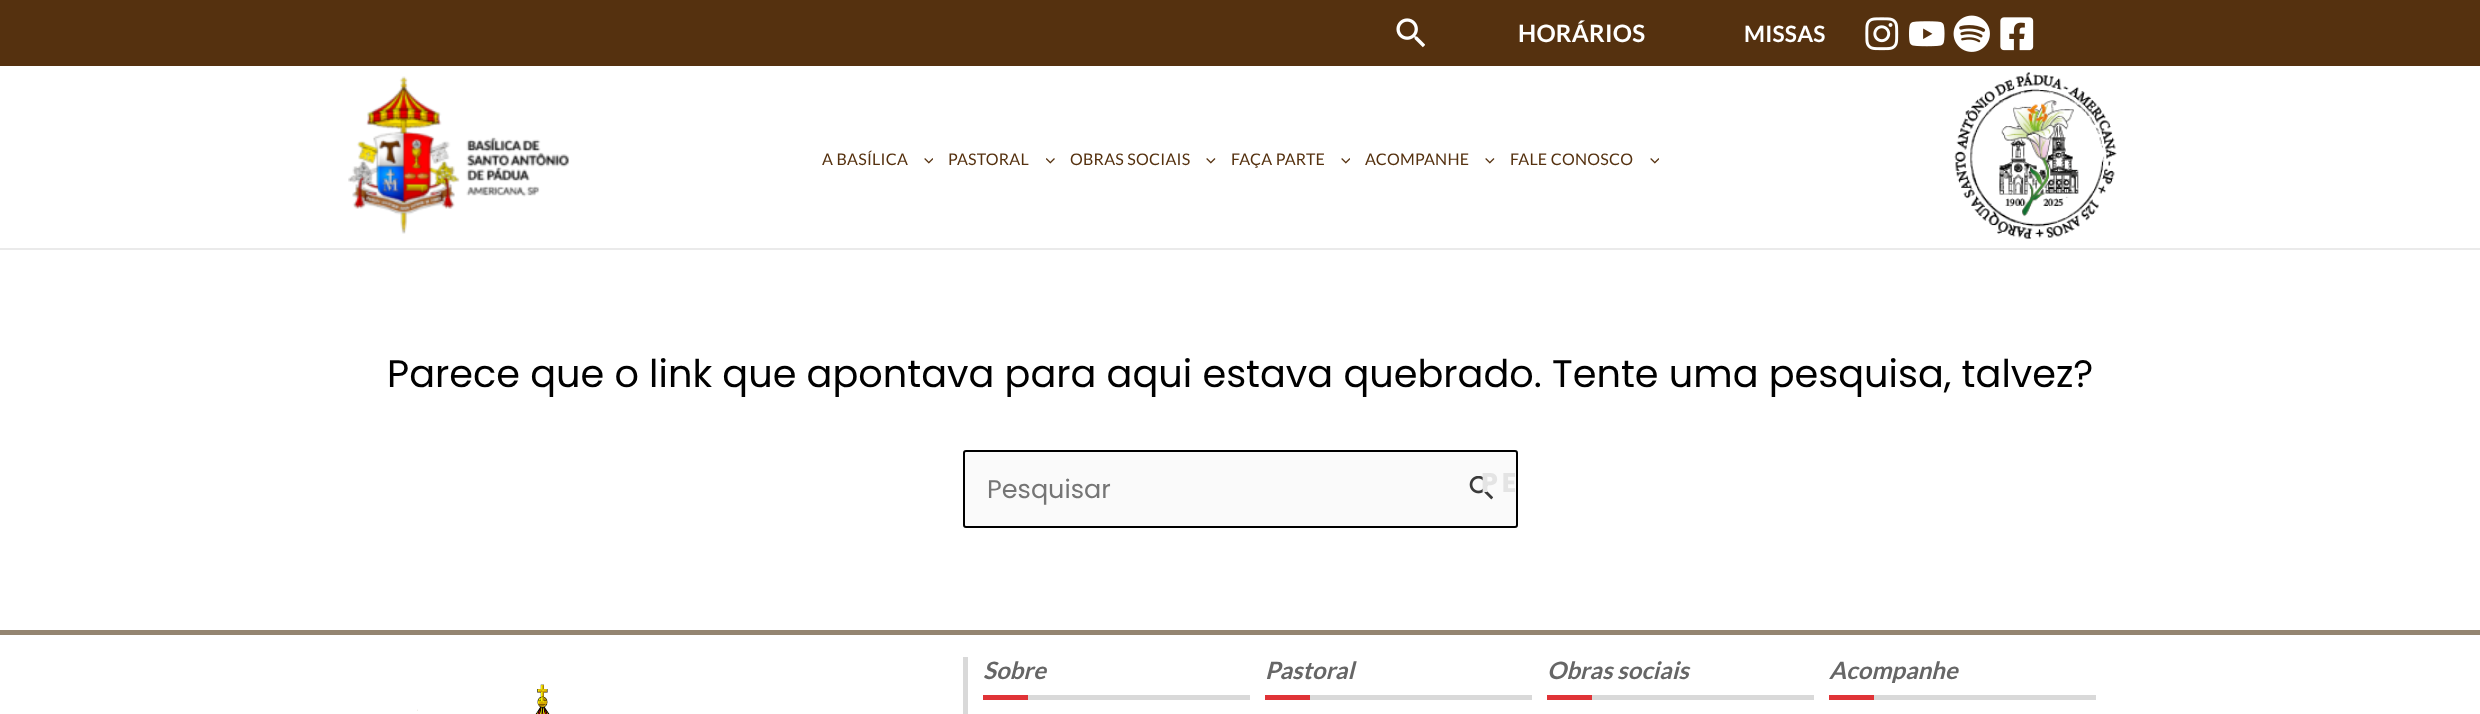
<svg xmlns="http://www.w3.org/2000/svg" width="2480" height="714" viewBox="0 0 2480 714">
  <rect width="100%" height="100%" fill="rgb(255,255,255)"/>
  <rect x="0" y="0" width="2480" height="66" fill="rgb(85,49,15)"/>
  <image x="1396" y="18" width="29" height="30" href="pic1.png"/>
  <text x="1518" y="42" font-family="Lato" font-size="24" font-weight="bold" letter-spacing="0.25" fill="rgb(255,255,255)">HORÁRIOS</text>
  <text x="1744" y="42" font-family="Lato" font-size="22.5" font-weight="bold" letter-spacing="0.25" fill="rgb(255,255,255)">MISSAS</text>
  <image x="1865" y="17" width="34" height="34" href="pic2.png"/>
  <image x="1909" y="21" width="36" height="26" href="pic3.png"/>
  <image x="1953" y="15" width="37" height="37" href="pic4.png"/>
  <image x="2000" y="17" width="34" height="34" href="pic5.png"/>
  <rect x="0" y="248" width="2480" height="2" fill="rgb(234,234,234)"/>
  <image x="348" y="76" width="222" height="158" href="pic6.png"/>
  <text x="822" y="165" font-family="Lato" font-size="16" letter-spacing="0.25" fill="rgb(85,49,15)">A BASÍLICA</text>
  <image x="924" y="158" width="9" height="6" href="pic7.png"/>
  <text x="948" y="165" font-family="Lato" font-size="16" letter-spacing="0.25" fill="rgb(85,49,15)">PASTORAL</text>
  <image x="1046" y="158" width="9" height="6" href="pic8.png"/>
  <text x="1070" y="165" font-family="Lato" font-size="16" letter-spacing="0.25" fill="rgb(85,49,15)">OBRAS SOCIAIS</text>
  <image x="1206" y="158" width="10" height="6" href="pic9.png"/>
  <text x="1231" y="165" font-family="Lato" font-size="16" letter-spacing="0.25" fill="rgb(85,49,15)">FAÇA PARTE</text>
  <image x="1341" y="158" width="9" height="6" href="pic7.png"/>
  <text x="1365" y="165" font-family="Lato" font-size="16" letter-spacing="0.25" fill="rgb(85,49,15)">ACOMPANHE</text>
  <image x="1485" y="158" width="10" height="6" href="pic9.png"/>
  <text x="1510" y="165" font-family="Lato" font-size="16" letter-spacing="0.25" fill="rgb(85,49,15)">FALE CONOSCO</text>
  <image x="1650" y="158" width="9" height="6" href="pic7.png"/>
  <image x="1954" y="72" width="163" height="167" href="pic10.png"/>
  <text x="387" y="387" font-family="Poppins" font-size="38.25" fill="rgb(0,0,0)">Parece que o link que apontava para aqui estava quebrado. Tente uma pesquisa, talvez?</text>
  <rect x="964" y="451" width="553" height="76" rx="2" fill="rgb(250,250,250)" stroke="rgb(0,0,0)" stroke-width="2"/>
  <text x="987" y="498" font-family="Poppins" font-size="25.5" fill="rgb(117,117,117)">Pesquisar</text>
  <image x="1469" y="476" width="24" height="24" href="pic11.png"/>
  <text x="1481" y="492" font-family="Poppins" font-size="27" font-weight="bold" letter-spacing="4" fill="rgb(228,228,228)">PE</text>
  <rect x="0" y="630" width="2480" height="5" fill="rgb(148,133,113)"/>
  <rect x="963" y="657" width="5" height="57" fill="rgb(217,217,217)"/>
  <text x="983" y="679" font-family="Lato" font-size="24" font-weight="bold" font-style="italic" fill="rgb(102,102,102)">Sobre</text>
  <rect x="983" y="695" width="45" height="5" fill="rgb(224,51,55)"/>
  <rect x="1028" y="695" width="222" height="5" fill="rgb(217,217,217)"/>
  <text x="1265" y="679" font-family="Lato" font-size="24" font-weight="bold" font-style="italic" fill="rgb(102,102,102)">Pastoral</text>
  <rect x="1265" y="695" width="45" height="5" fill="rgb(224,51,55)"/>
  <rect x="1310" y="695" width="222" height="5" fill="rgb(217,217,217)"/>
  <text x="1547" y="679" font-family="Lato" font-size="24" font-weight="bold" font-style="italic" fill="rgb(102,102,102)">Obras sociais</text>
  <rect x="1547" y="695" width="45" height="5" fill="rgb(224,51,55)"/>
  <rect x="1592" y="695" width="222" height="5" fill="rgb(217,217,217)"/>
  <text x="1829" y="679" font-family="Lato" font-size="24" font-weight="bold" font-style="italic" fill="rgb(102,102,102)">Acompanhe</text>
  <rect x="1829" y="695" width="45" height="5" fill="rgb(224,51,55)"/>
  <rect x="1874" y="695" width="222" height="5" fill="rgb(217,217,217)"/>
  <image x="417" y="684" width="133" height="30" href="pic12.png"/>
</svg>
